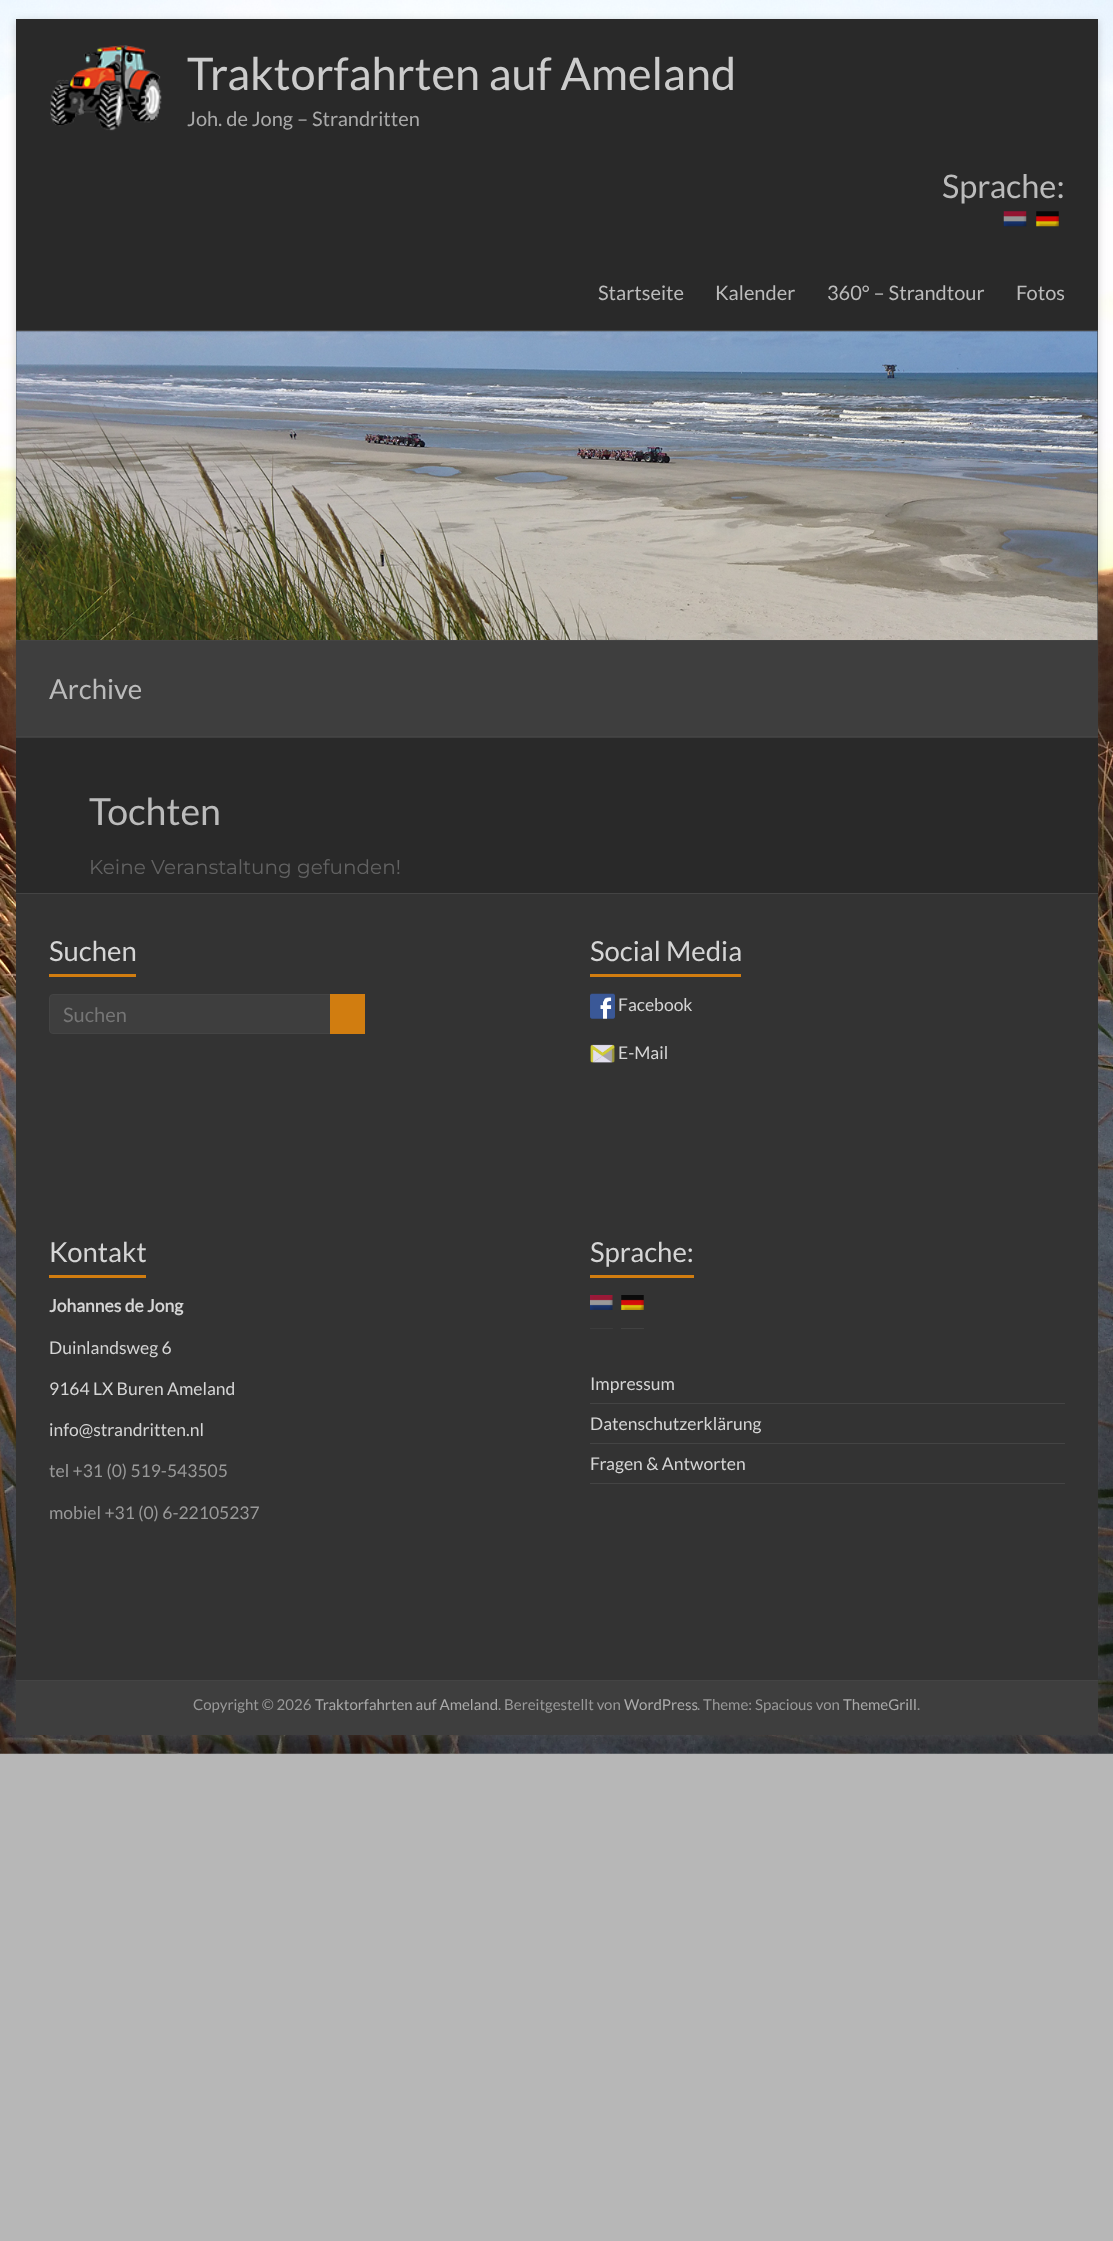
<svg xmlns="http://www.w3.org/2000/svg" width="1113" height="2241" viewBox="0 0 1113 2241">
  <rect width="100%" height="100%" fill="rgb(183,183,183)"/>
  <image x="0" y="0" width="1113" height="1754" href="pic1.png"/>
  <rect x="16" y="21" width="1082" height="1717" fill="rgba(100,100,100,0.3)" filter="blur(4px)"/>
  <rect x="16" y="19" width="1082" height="874" fill="rgb(41,41,41)"/>
  <rect x="16" y="330" width="1082" height="1" fill="rgb(68,68,68)"/>
  <image x="50" y="45" width="112" height="86" href="pic2.png"/>
  <text x="187" y="90" font-family="Lato" font-size="45" fill="rgb(204,204,204)">Traktorfahrten auf Ameland</text>
  <text x="187" y="126" font-family="Lato" font-size="20" fill="rgb(170,170,170)">Joh. de Jong – Strandritten</text>
  <text x="942" y="198" font-family="Lato" font-size="32.5" fill="rgb(187,187,187)">Sprache:</text>
  <image x="1003" y="211" width="24" height="16" href="pic3.png"/>
  <image x="1036" y="211" width="23" height="16" href="pic4.png"/>
  <g font-family="Lato" font-size="20" fill="rgb(187,187,187)">
    <text x="598" y="300">Startseite</text>
    <text x="715" y="300">Kalender</text>
    <text x="827" y="300">360° – Strandtour</text>
    <text x="1016" y="300">Fotos</text>
  </g>
  <image x="16" y="331" width="1082" height="309" href="pic5.png"/>
  <rect x="16" y="640" width="1082" height="1" fill="rgb(68,68,68)"/>
  <rect x="16" y="641" width="1082" height="97" fill="rgb(62,62,62)"/>
  <rect x="16" y="736" width="1082" height="1" fill="rgb(68,68,68)"/>
  <text x="49" y="699" font-family="Lato" font-size="27.5" fill="rgb(187,187,187)">Archive</text>
  <text x="89" y="825" font-family="Lato" font-size="37.5" fill="rgb(187,187,187)">Tochten</text>
  <text x="89" y="874" font-family="Montserrat" font-size="20" fill="rgb(98,98,98)">Keine Veranstaltung gefunden!</text>
  <rect x="16" y="894" width="1082" height="786" fill="rgb(51,51,51)"/>
  <rect x="16" y="893" width="1082" height="1" fill="rgb(68,68,68)"/>
  <text x="49" y="961" font-family="Lato" font-size="27.5" fill="rgb(213,213,213)">Suchen</text>
  <rect x="49" y="974" width="87" height="3" fill="rgb(209,125,16)"/>
  <rect x="49.5" y="994.5" width="284" height="39" rx="3.5" fill="rgb(62,62,62)" stroke="rgb(68,68,68)"/>
  <text x="63" y="1022" font-family="Lato" font-size="20" fill="rgb(117,117,117)">Suchen</text>
  <rect x="330" y="994" width="35" height="40" fill="rgb(209,125,16)"/>
  <text x="590" y="961" font-family="Lato" font-size="27.5" fill="rgb(213,213,213)">Social Media</text>
  <rect x="590" y="974" width="151" height="3" fill="rgb(209,125,16)"/>
  <image x="590" y="993" width="25" height="26" href="pic6.png"/>
  <text x="618" y="1011" font-family="Lato" font-size="17.5" fill="rgb(213,213,213)">Facebook</text>
  <image x="590" y="1044" width="25" height="19" href="pic7.png"/>
  <text x="618" y="1059" font-family="Lato" font-size="17.5" fill="rgb(213,213,213)">E-Mail</text>
  <text x="49" y="1262" font-family="Lato" font-size="27.5" fill="rgb(213,213,213)">Kontakt</text>
  <rect x="49" y="1275" width="97" height="3" fill="rgb(209,125,16)"/>
  <text x="49" y="1312" font-family="Lato" font-size="17.5" font-weight="bold" fill="rgb(213,213,213)">Johannes de Jong</text>
  <g font-family="Lato" font-size="17.5" fill="rgb(213,213,213)">
    <text x="49" y="1354">Duinlandsweg 6</text>
    <text x="49" y="1395">9164 LX Buren Ameland</text>
    <text x="49" y="1436">info@strandritten.nl</text>
  </g>
  <g font-family="Lato" font-size="17.5" fill="rgb(153,153,153)">
    <text x="49" y="1477">tel +31 (0) 519-543505</text>
    <text x="49" y="1519">mobiel +31 (0) 6-22105237</text>
  </g>
  <text x="590" y="1262" font-family="Lato" font-size="27.5" fill="rgb(213,213,213)">Sprache:</text>
  <rect x="590" y="1275" width="104" height="3" fill="rgb(209,125,16)"/>
  <image x="590" y="1295" width="23" height="15" href="pic8.png"/>
  <image x="621" y="1295" width="23" height="15" href="pic9.png"/>
  <rect x="590" y="1328" width="23" height="1" fill="rgb(60,60,60)"/>
  <rect x="621" y="1328" width="23" height="1" fill="rgb(65,65,65)"/>
  <rect x="590" y="1403" width="475" height="1" fill="rgb(68,68,68)"/>
  <text x="590" y="1390" font-family="Lato" font-size="17.5" fill="rgb(213,213,213)">Impressum</text>
  <rect x="590" y="1443" width="475" height="1" fill="rgb(68,68,68)"/>
  <text x="590" y="1430" font-family="Lato" font-size="17.5" fill="rgb(213,213,213)">Datenschutzerklärung</text>
  <rect x="590" y="1483" width="475" height="1" fill="rgb(68,68,68)"/>
  <text x="590" y="1470" font-family="Lato" font-size="17.5" fill="rgb(213,213,213)">Fragen &amp; Antworten</text>
  <rect x="16" y="1681" width="1082" height="54" fill="rgb(62,62,62)"/>
  <rect x="16" y="1680" width="1082" height="1" fill="rgb(68,68,68)"/>
  <text x="193" y="1710" font-family="Lato" font-size="15" fill="rgb(153,153,153)">Copyright © 2026</text>
  <text x="315" y="1710" font-family="Lato" font-size="15" fill="rgb(170,170,170)">Traktorfahrten auf Ameland</text>
  <text x="498" y="1710" font-family="Lato" font-size="15" fill="rgb(153,153,153)">. Bereitgestellt von</text>
  <text x="624" y="1710" font-family="Lato" font-size="15" fill="rgb(170,170,170)">WordPress</text>
  <text x="697" y="1710" font-family="Lato" font-size="15" fill="rgb(153,153,153)">. Theme: Spacious von</text>
  <text x="843" y="1710" font-family="Lato" font-size="15" fill="rgb(170,170,170)">ThemeGrill</text>
  <text x="917" y="1710" font-family="Lato" font-size="15" fill="rgb(153,153,153)">.</text>
</svg>
